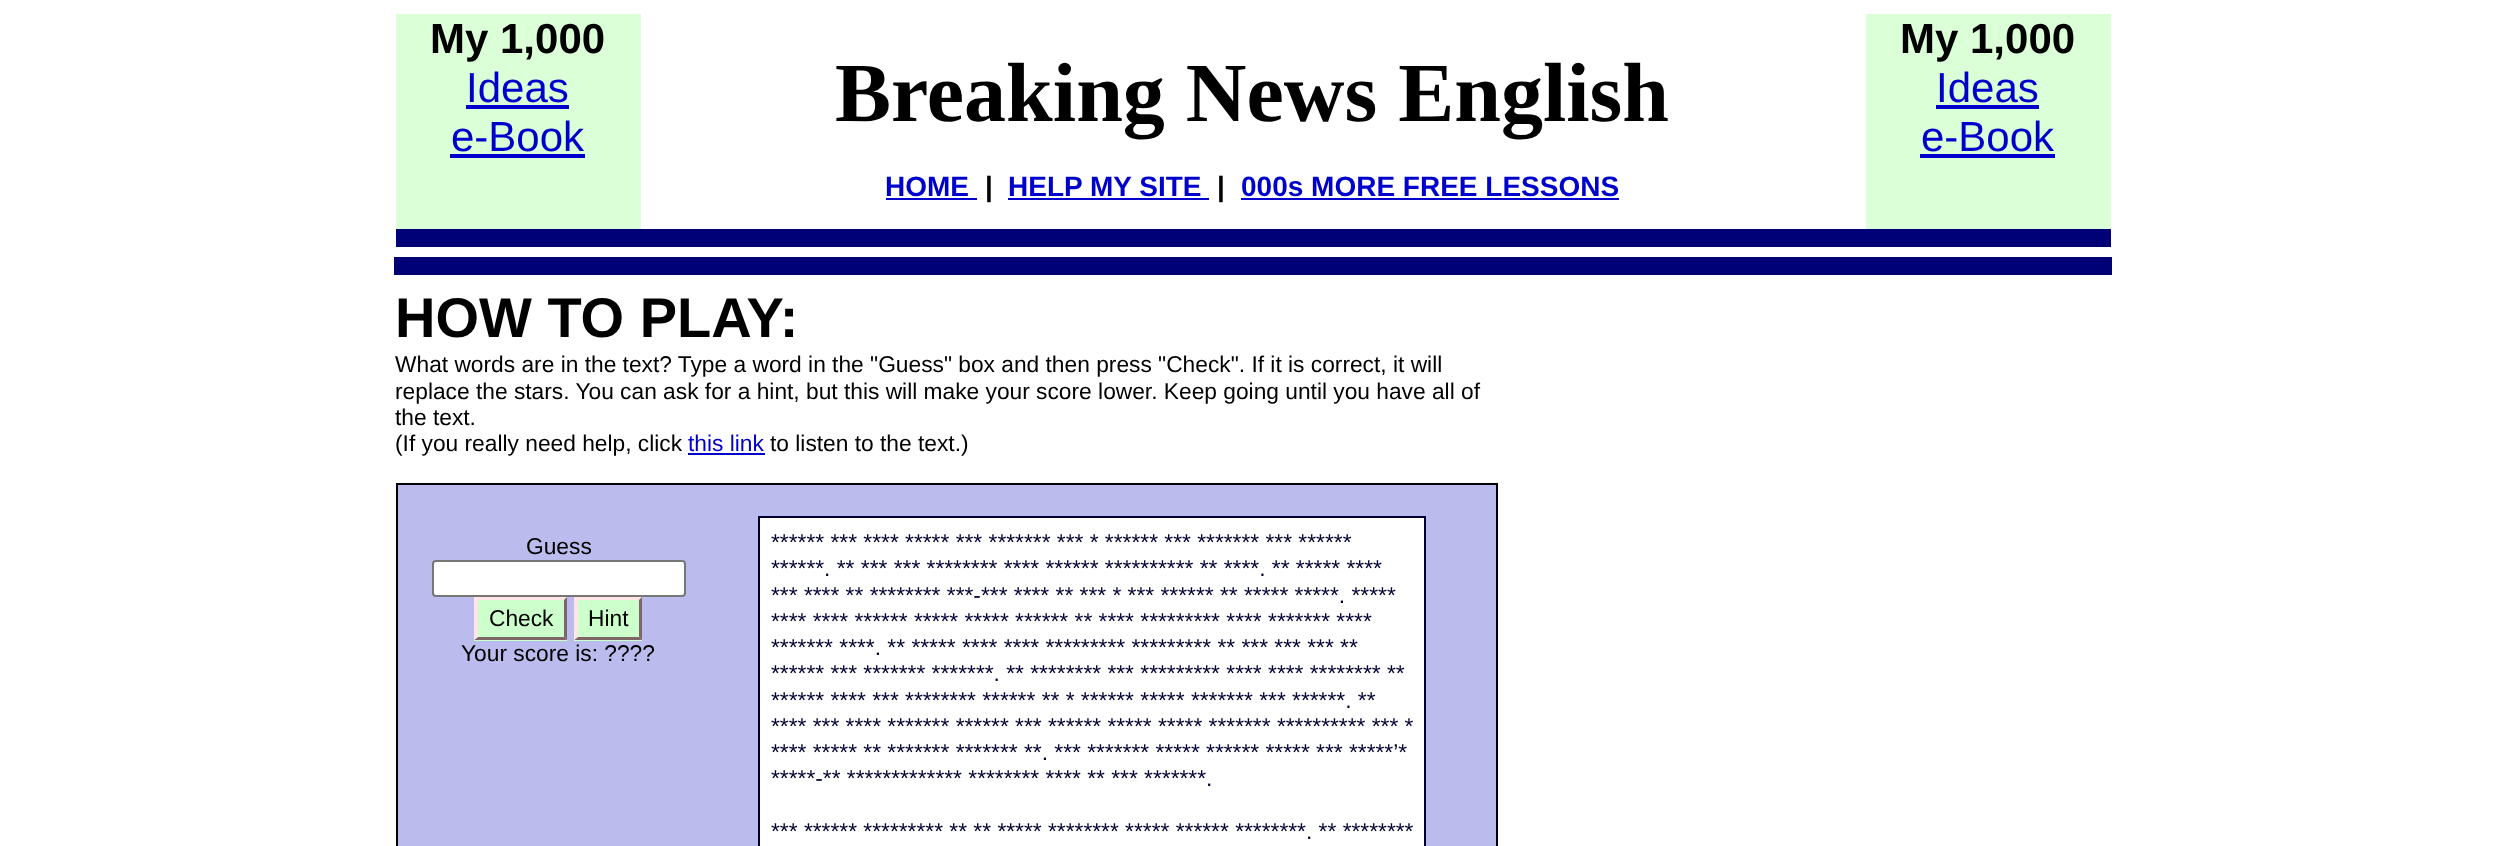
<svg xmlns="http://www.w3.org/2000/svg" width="2503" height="846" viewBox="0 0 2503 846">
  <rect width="100%" height="100%" fill="rgb(255,255,255)"/>
  <rect x="396" y="14" width="245" height="215" fill="rgb(219,255,214)"/>
  <text x="430" y="53" font-family="Liberation Sans" font-size="42" font-weight="bold" fill="rgb(0,0,0)">My 1,000</text>
  <text x="466" y="102" font-family="Liberation Sans" font-size="42" fill="rgb(0,0,204)">Ideas</text>
  <rect x="466" y="105" width="103" height="4" fill="rgb(0,0,204)"/>
  <text x="451" y="151" font-family="Liberation Sans" font-size="42" fill="rgb(0,0,204)">e-Book</text>
  <rect x="450" y="154" width="135" height="4" fill="rgb(0,0,204)"/>
  <text x="835" y="121" font-family="Liberation Serif" font-size="84" font-weight="bold" fill="rgb(0,0,0)">Breaking News English</text>
  <text x="885" y="196" font-family="Liberation Sans" font-size="28" font-weight="bold" fill="rgb(0,0,204)">HOME</text>
  <rect x="886" y="198" width="91" height="2" fill="rgb(0,0,204)"/>
  <text x="985" y="196" font-family="Liberation Sans" font-size="28" font-weight="bold" fill="rgb(0,0,0)">|</text>
  <text x="1008" y="196" font-family="Liberation Sans" font-size="28" font-weight="bold" fill="rgb(0,0,204)">HELP MY SITE</text>
  <rect x="1008" y="198" width="201" height="2" fill="rgb(0,0,204)"/>
  <text x="1217" y="196" font-family="Liberation Sans" font-size="28" font-weight="bold" fill="rgb(0,0,0)">|</text>
  <text x="1241" y="196" font-family="Liberation Sans" font-size="28" font-weight="bold" fill="rgb(0,0,204)">000s MORE FREE LESSONS</text>
  <rect x="1241" y="198" width="378" height="2" fill="rgb(0,0,204)"/>
  <rect x="1866" y="14" width="245" height="215" fill="rgb(219,255,214)"/>
  <text x="1900" y="53" font-family="Liberation Sans" font-size="42" font-weight="bold" fill="rgb(0,0,0)">My 1,000</text>
  <text x="1936" y="102" font-family="Liberation Sans" font-size="42" fill="rgb(0,0,204)">Ideas</text>
  <rect x="1936" y="105" width="103" height="4" fill="rgb(0,0,204)"/>
  <text x="1921" y="151" font-family="Liberation Sans" font-size="42" fill="rgb(0,0,204)">e-Book</text>
  <rect x="1920" y="154" width="135" height="4" fill="rgb(0,0,204)"/>
  <rect x="396" y="229" width="1715" height="18" fill="rgb(0,0,119)"/>
  <rect x="394" y="257" width="1718" height="18" fill="rgb(0,0,119)"/>
  <text x="395" y="337" font-family="Liberation Sans" font-size="56" font-weight="bold" fill="rgb(0,0,0)">HOW TO PLAY:</text>
  <g font-family="Liberation Sans" font-size="22.75" fill="rgb(0,0,0)">
    <text>
      <tspan x="395" y="372">What words are in the text? Type a word in the "Guess" box and then press "Check". If it is correct, it will</tspan>
      <tspan x="395" y="399">replace the stars. You can ask for a hint, but this will make your score lower. Keep going until you have all of</tspan>
      <tspan x="395" y="425">the text.</tspan>
      <tspan x="395" y="451">(If you really need help, click</tspan>
    </text>
  </g>
  <text x="688" y="451" font-family="Liberation Sans" font-size="22.75" fill="rgb(0,0,204)">this link</text>
  <rect x="688" y="453" width="77" height="2" fill="rgb(0,0,204)"/>
  <text x="770" y="451" font-family="Liberation Sans" font-size="22.75" fill="rgb(0,0,0)">to listen to the text.)</text>
  <rect x="397" y="484" width="1100" height="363" fill="rgb(187,187,238)" stroke="rgb(0,0,0)" stroke-width="2"/>
  <text x="526" y="554" font-family="Liberation Sans" font-size="22.75" fill="rgb(0,0,0)">Guess</text>
  <rect x="433" y="561" width="252" height="35" rx="3" fill="rgb(255,255,255)" stroke="rgb(118,118,118)" stroke-width="2"/>
  <rect x="474" y="597" width="93" height="44" fill="rgb(204,255,204)"/>
  <path d="M474 597H567L564 600H478Z" fill="rgb(255,229,229)"/>
  <path d="M567 597V640L564 637V600Z" fill="rgb(127,102,102)"/>
  <path d="M567 640H474L478 637H564Z" fill="rgb(127,102,102)"/>
  <path d="M474 640V597L478 600V637Z" fill="rgb(255,229,229)"/>
  <text x="489" y="626" font-family="Liberation Sans" font-size="22.75" fill="rgb(0,0,0)">Check</text>
  <rect x="574" y="597" width="68" height="44" fill="rgb(204,255,204)"/>
  <path d="M574 597H642L639 600H578Z" fill="rgb(255,229,229)"/>
  <path d="M642 597V640L639 637V600Z" fill="rgb(127,102,102)"/>
  <path d="M642 640H574L578 637H639Z" fill="rgb(127,102,102)"/>
  <path d="M574 640V597L578 600V637Z" fill="rgb(255,229,229)"/>
  <g font-family="Liberation Sans" font-size="22.75" fill="rgb(0,0,0)">
    <text x="588" y="626">Hint</text>
    <text x="461" y="661">Your score is: ????</text>
  </g>
  <rect x="759" y="517" width="666" height="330" fill="rgb(255,255,255)" stroke="rgb(0,0,51)" stroke-width="2"/>
  <g font-family="Liberation Sans" font-size="22.75" fill="rgb(0,0,51)">
    <text>
      <tspan x="771" y="550">****** *** **** ***** *** ******* *** * ****** *** ******* *** ******</tspan>
      <tspan x="771" y="576">******. ** *** *** ******** **** ****** ********** ** ****. ** ***** ****</tspan>
      <tspan x="771" y="603">*** **** ** ******** ***-*** **** ** *** * *** ****** ** ***** *****. *****</tspan>
      <tspan x="771" y="629">**** **** ****** ***** ***** ****** ** **** ********* **** ******* ****</tspan>
      <tspan x="771" y="655">******* ****. ** ***** **** **** ********* ********* ** *** *** *** **</tspan>
      <tspan x="771" y="681">****** *** ******* *******. ** ******** *** ********* **** **** ******** **</tspan>
      <tspan x="771" y="708">****** **** *** ******** ****** ** * ****** ***** ******* *** ******. **</tspan>
      <tspan x="771" y="734">**** *** **** ******* ****** *** ****** ***** ***** ******* ********** *** *</tspan>
      <tspan x="771" y="760">**** ***** ** ******* ******* **. *** ******* ***** ****** ***** *** *****’*</tspan>
      <tspan x="771" y="786">*****-** ************* ******** **** ** *** *******.</tspan>
    </text>
    <text x="771" y="839">*** ****** ********* ** ** ***** ******** ***** ****** ********. ** ********</text>
  </g>
</svg>
